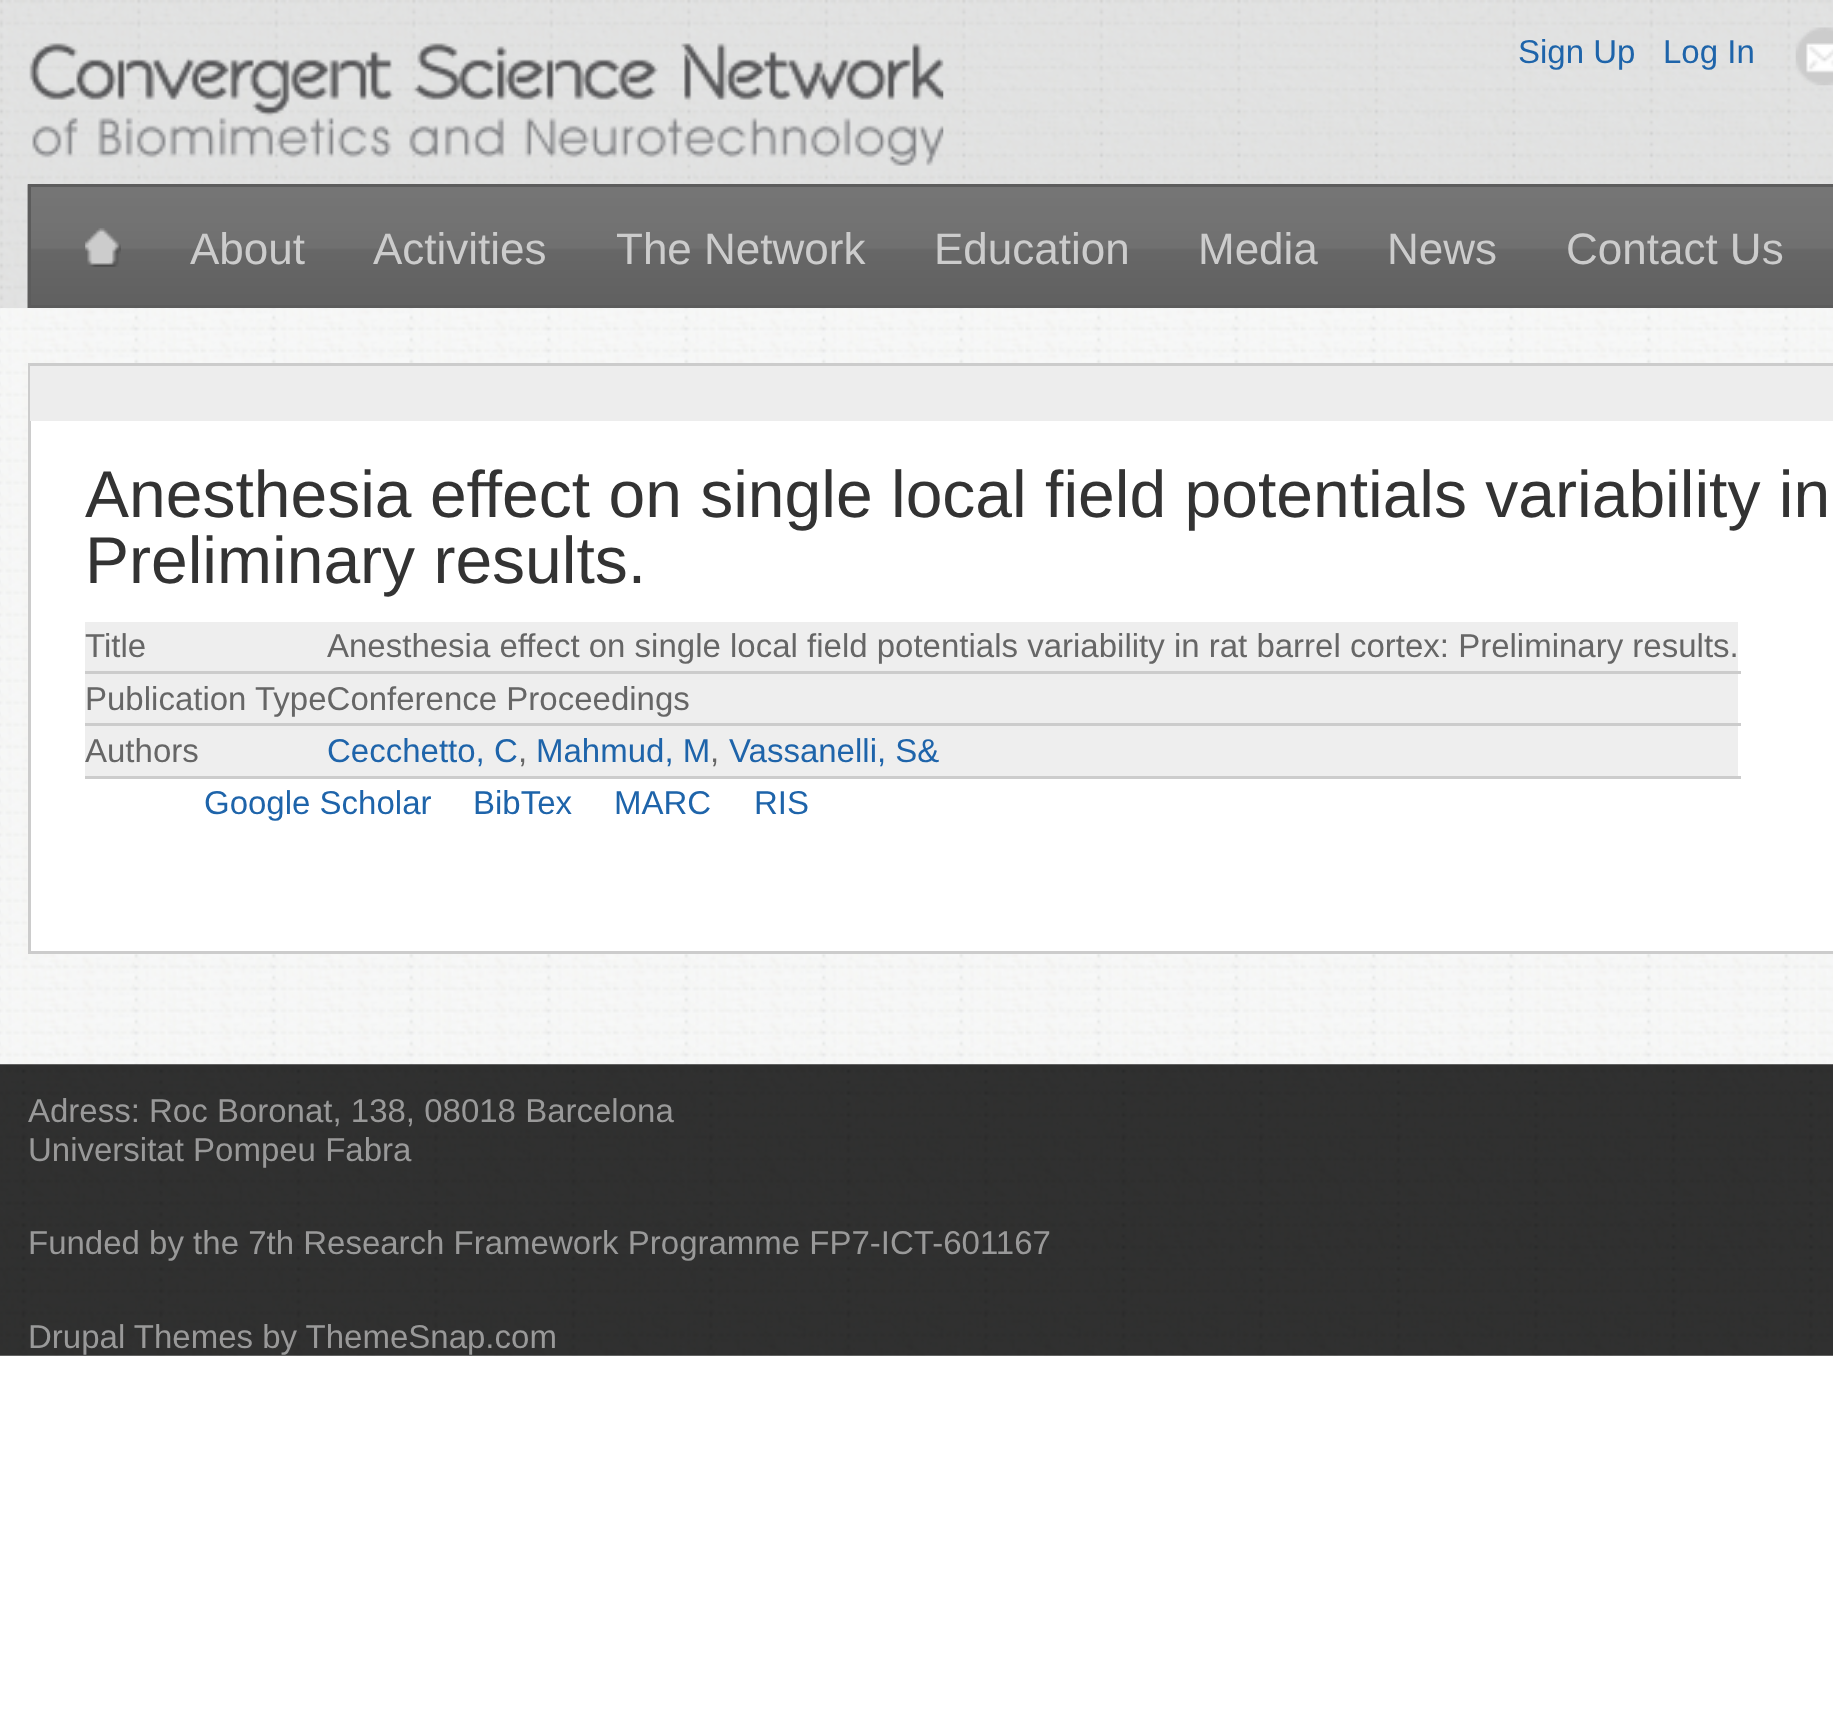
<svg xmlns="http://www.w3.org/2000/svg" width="1833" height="1726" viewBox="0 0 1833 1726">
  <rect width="100%" height="100%" fill="rgb(255,255,255)"/>
  <image x="0" y="308" width="1833" height="1048" href="pic1.png"/>
  <image x="0" y="0" width="1833" height="308" href="pic2.png"/>
  <image x="29" y="43" width="915" height="123" href="pic3.png"/>
  <g font-family="Liberation Sans" font-size="33" fill="rgb(30,100,170)">
    <text x="1518" y="63">Sign Up</text>
    <text x="1663" y="63">Log In</text>
  </g>
  <image x="1795" y="27" width="38" height="59" href="pic4.png"/>
  <image x="27" y="184" width="1806" height="124" href="pic5.png"/>
  <rect x="29.5" y="185.5" width="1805" height="121" fill="none" stroke="rgb(92,92,92)" stroke-width="3"/>
  <image x="85" y="228" width="36" height="39" href="pic6.png"/>
  <g font-family="Liberation Sans" font-size="44" fill="rgb(204,204,204)">
    <text x="190" y="264">About</text>
    <text x="373" y="264">Activities</text>
    <text x="616" y="264">The Network</text>
    <text x="934" y="264">Education</text>
    <text x="1198" y="264">Media</text>
    <text x="1387" y="264">News</text>
    <text x="1566" y="264">Contact Us</text>
  </g>
  <rect x="31" y="421" width="1802" height="530" fill="rgb(255,255,255)"/>
  <rect x="29.5" y="364.5" width="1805" height="588" fill="none" stroke="rgb(204,204,204)" stroke-width="3"/>
  <rect x="30" y="366" width="1803" height="55" fill="rgb(237,237,237)"/>
  <g font-family="Liberation Sans" font-size="66" fill="rgb(51,51,51)">
    <text>
      <tspan x="85" y="517">Anesthesia effect on single local field potentials variability in</tspan>
      <tspan x="85" y="583">Preliminary results.</tspan>
    </text>
  </g>
  <rect x="85" y="622" width="1653" height="49" fill="rgb(238,238,238)"/>
  <rect x="85" y="671" width="1656" height="3" fill="rgb(204,204,204)"/>
  <g font-family="Liberation Sans" font-size="33" fill="rgb(102,102,102)">
    <text x="85" y="657">Title</text>
    <text x="327" y="657">Anesthesia effect on single local field potentials variability in rat barrel cortex: Preliminary results.</text>
  </g>
  <rect x="85" y="674" width="1653" height="49" fill="rgb(238,238,238)"/>
  <rect x="85" y="723" width="1656" height="3" fill="rgb(204,204,204)"/>
  <text x="85" y="710" font-family="Liberation Sans" font-size="33" fill="rgb(102,102,102)">Publication TypeConference Proceedings</text>
  <rect x="85" y="726" width="1653" height="50" fill="rgb(238,238,238)"/>
  <rect x="85" y="776" width="1656" height="3" fill="rgb(204,204,204)"/>
  <text x="85" y="762" font-family="Liberation Sans" font-size="33" fill="rgb(102,102,102)">Authors</text>
  <text x="327" y="762" font-family="Liberation Sans" font-size="33" fill="rgb(30,100,170)">Cecchetto, C</text>
  <text x="518" y="762" font-family="Liberation Sans" font-size="33" fill="rgb(102,102,102)">,</text>
  <text x="536" y="762" font-family="Liberation Sans" font-size="33" fill="rgb(30,100,170)">Mahmud, M</text>
  <text x="710" y="762" font-family="Liberation Sans" font-size="33" fill="rgb(102,102,102)">,</text>
  <g font-family="Liberation Sans" font-size="33" fill="rgb(30,100,170)">
    <text x="729" y="762">Vassanelli, S&amp;</text>
    <text x="204" y="814">Google Scholar</text>
    <text x="473" y="814">BibTex</text>
    <text x="614" y="814">MARC</text>
    <text x="754" y="814">RIS</text>
  </g>
  <image x="0" y="1064" width="1833" height="292" href="pic7.png"/>
  <g font-family="Liberation Sans" font-size="33" fill="rgb(153,153,153)">
    <text>
      <tspan x="28" y="1122">Adress: Roc Boronat, 138, 08018 Barcelona</tspan>
      <tspan x="28" y="1161">Universitat Pompeu Fabra</tspan>
    </text>
    <text x="28" y="1254">Funded by the 7th Research Framework Programme FP7-ICT-601167</text>
    <text x="28" y="1348">Drupal Themes by ThemeSnap.com</text>
  </g>
</svg>
